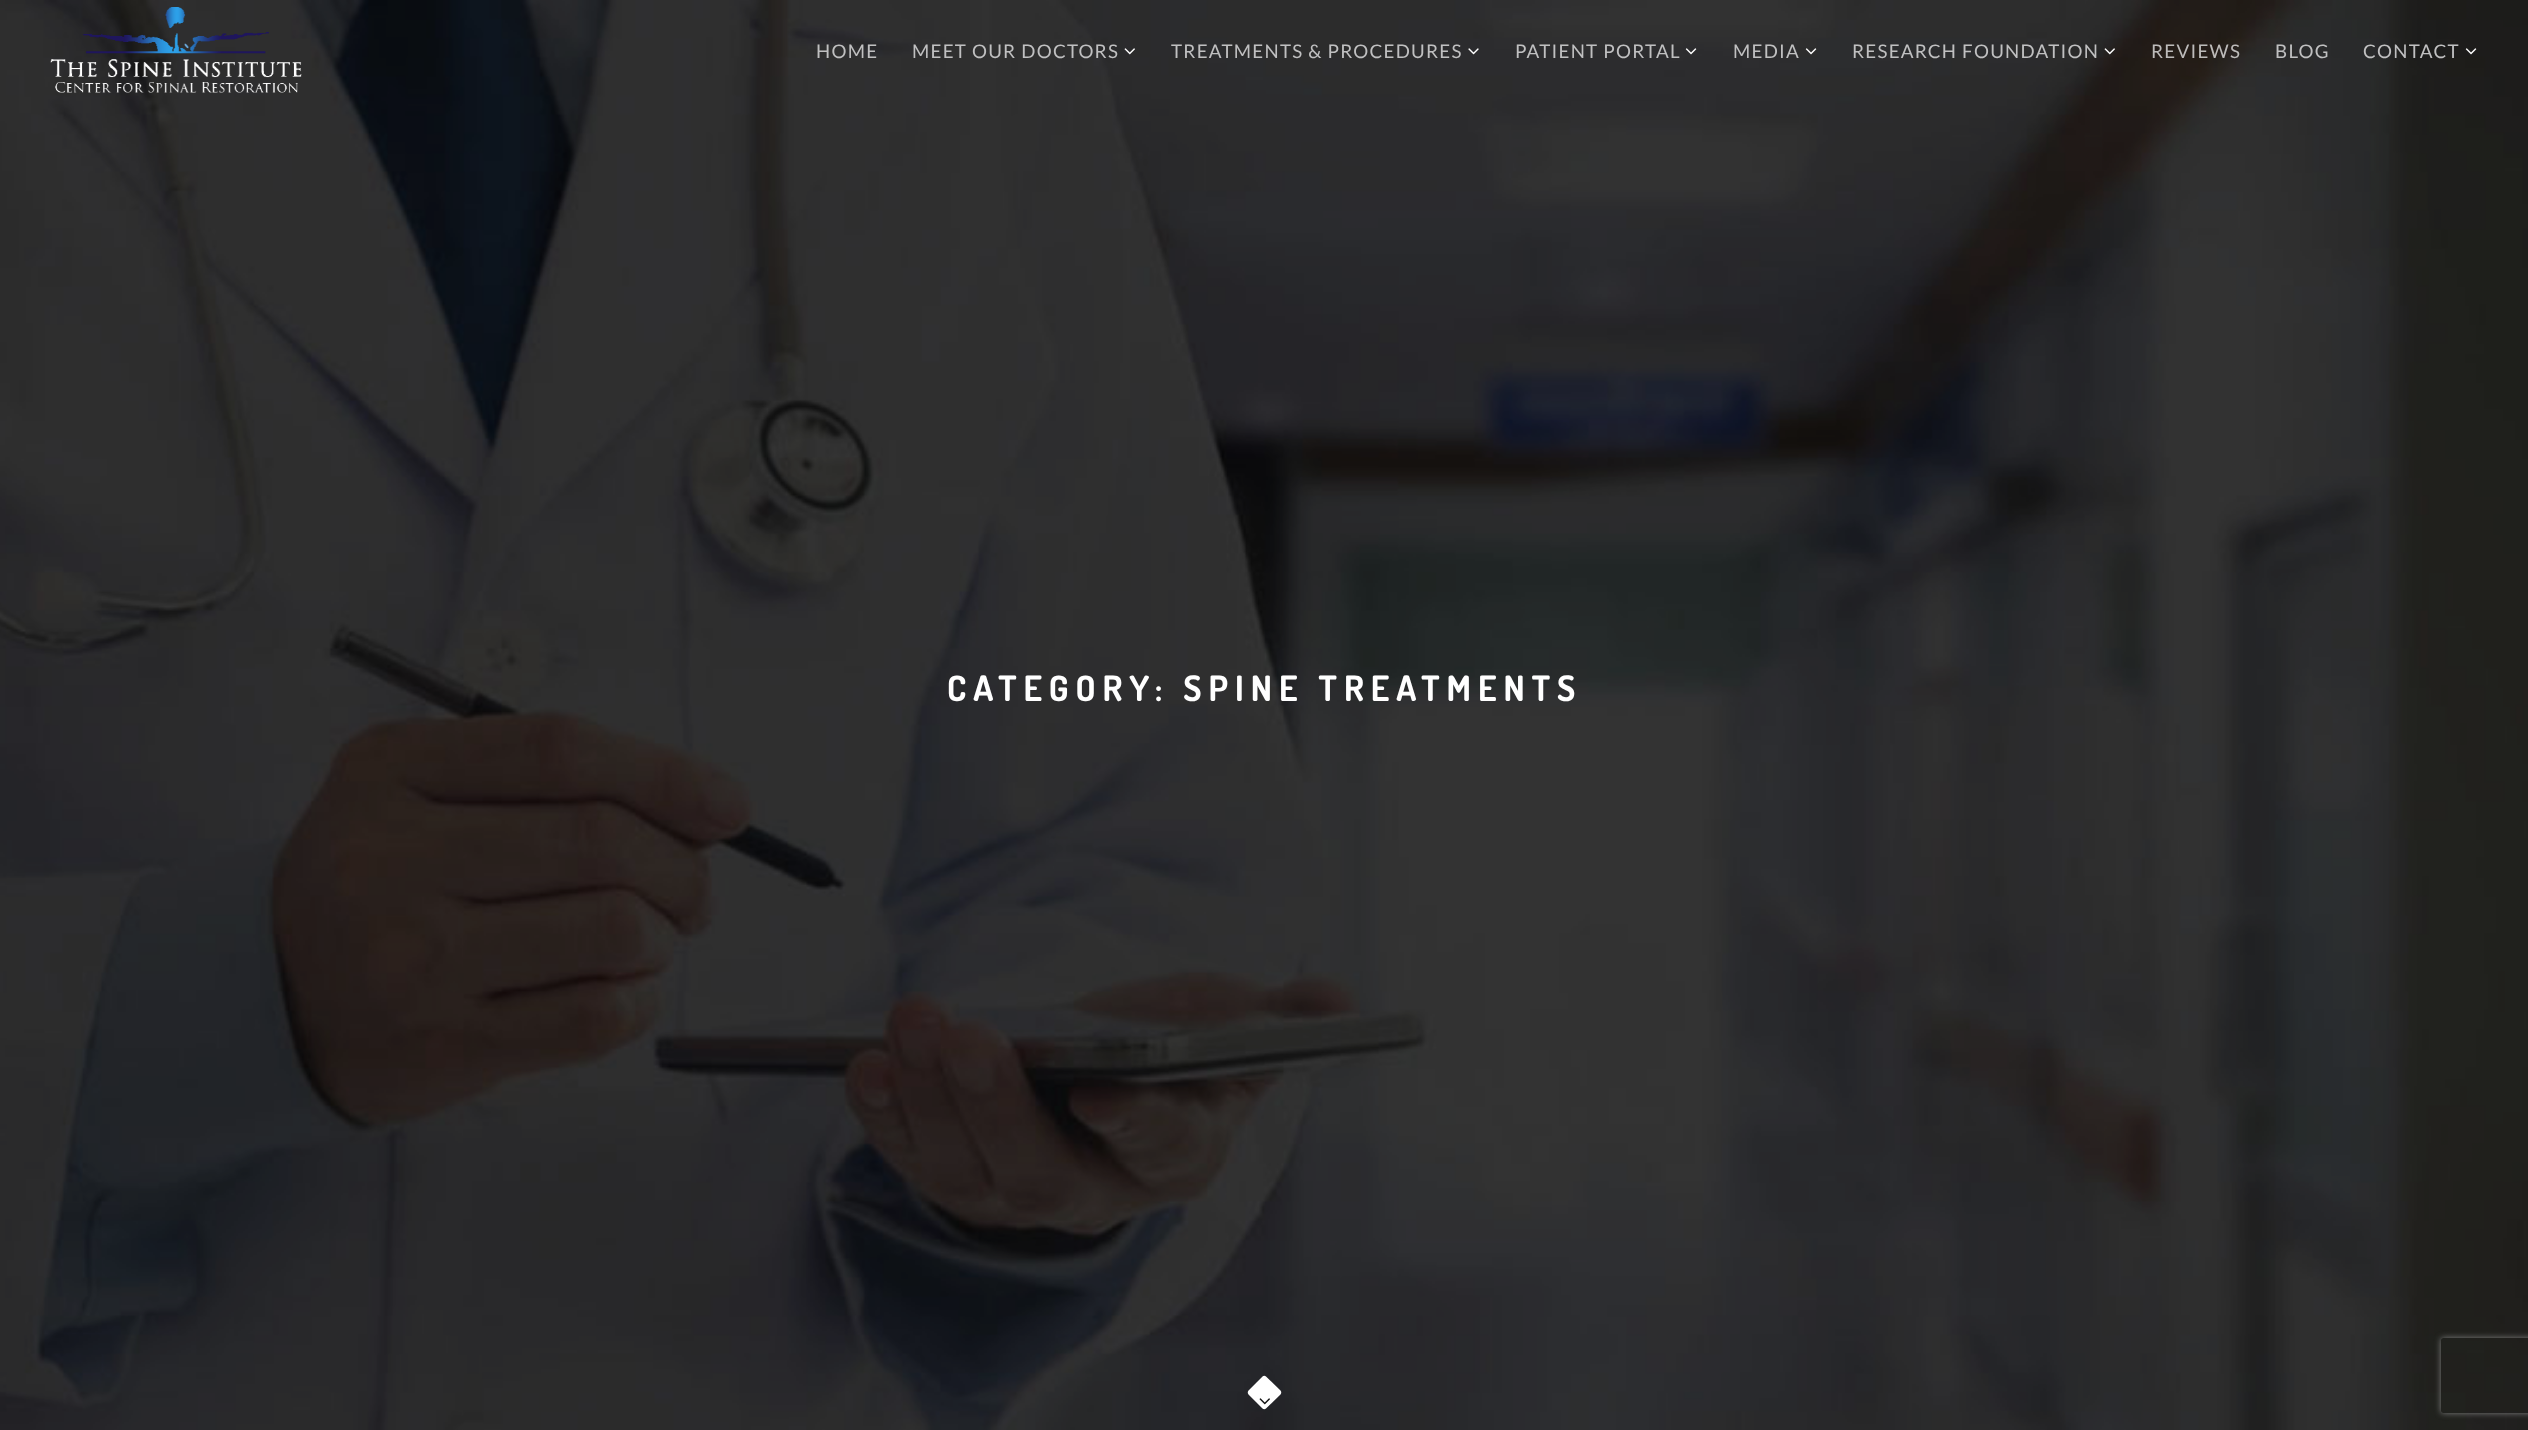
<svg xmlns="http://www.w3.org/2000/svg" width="2528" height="1430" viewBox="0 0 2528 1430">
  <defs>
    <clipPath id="clip1"><path d="M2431 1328H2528V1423H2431ZM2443.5 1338H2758.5C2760 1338 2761 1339 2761 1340.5V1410.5C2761 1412 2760 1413 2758.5 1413H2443.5C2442 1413 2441 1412 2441 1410.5V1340.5C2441 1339 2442 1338 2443.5 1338Z" clip-rule="evenodd"/></clipPath>
  </defs>
  <rect width="100%" height="100%" fill="rgb(255,255,255)"/>
  <image x="0" y="0" width="2528" height="1430" href="pic8.png"/>
  <image x="50" y="7" width="252" height="86" href="pic1.png"/>
  <g font-family="Lato" font-size="18.75" letter-spacing="1.25" fill="rgb(192,192,193)">
    <text x="816" y="58">HOME</text>
    <text x="912" y="58">MEET OUR DOCTORS</text>
  </g>
  <image x="1124" y="48" width="11" height="7" href="pic2.png"/>
  <text x="1171" y="58" font-family="Lato" font-size="18.75" letter-spacing="1.25" fill="rgb(192,192,193)">TREATMENTS &amp; PROCEDURES</text>
  <image x="1468" y="48" width="11" height="7" href="pic3.png"/>
  <text x="1515" y="58" font-family="Lato" font-size="18.75" letter-spacing="1.25" fill="rgb(192,192,193)">PATIENT PORTAL</text>
  <image x="1685" y="48" width="12" height="7" href="pic4.png"/>
  <text x="1733" y="58" font-family="Lato" font-size="18.75" letter-spacing="1.25" fill="rgb(192,192,193)">MEDIA</text>
  <image x="1805" y="48" width="12" height="7" href="pic5.png"/>
  <text x="1852" y="58" font-family="Lato" font-size="18.75" letter-spacing="1.25" fill="rgb(192,192,193)">RESEARCH FOUNDATION</text>
  <image x="2104" y="48" width="11" height="7" href="pic6.png"/>
  <text x="2151" y="58" font-family="Lato" font-size="18.75" letter-spacing="1.25" fill="rgb(189,187,186)">REVIEWS</text>
  <g font-family="Lato" font-size="18.75" letter-spacing="1.25" fill="rgb(192,192,193)">
    <text x="2275" y="58">BLOG</text>
    <text x="2363" y="58">CONTACT</text>
  </g>
  <image x="2465" y="48" width="12" height="7" href="pic7.png"/>
  <text x="947" y="701" font-family="Dosis" font-size="35" font-weight="bold" letter-spacing="7" fill="rgb(255,255,255)">CATEGORY: SPINE TREATMENTS</text>
  <path d="M1266 1376.5L1280.5 1390.5C1281.5 1391.5 1281.5 1393.5 1280.5 1394.5L1266 1408.5C1265 1409.5 1263.5 1409.5 1262.5 1408.5L1248.5 1394.5C1247.5 1393.5 1247.5 1391.5 1248.5 1390.5L1262.5 1376.5C1263.5 1375.5 1265 1375.5 1266 1376.5Z" fill="rgb(255,255,255)"/>
  <image x="1259" y="1398" width="11" height="7" href="pic9.png"/>
  <g clip-path="url(#clip1)">
    <rect x="2441" y="1338" width="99" height="75" rx="2.5" fill="rgb(128,128,128)" filter="blur(3px)"/>
  </g>
</svg>
